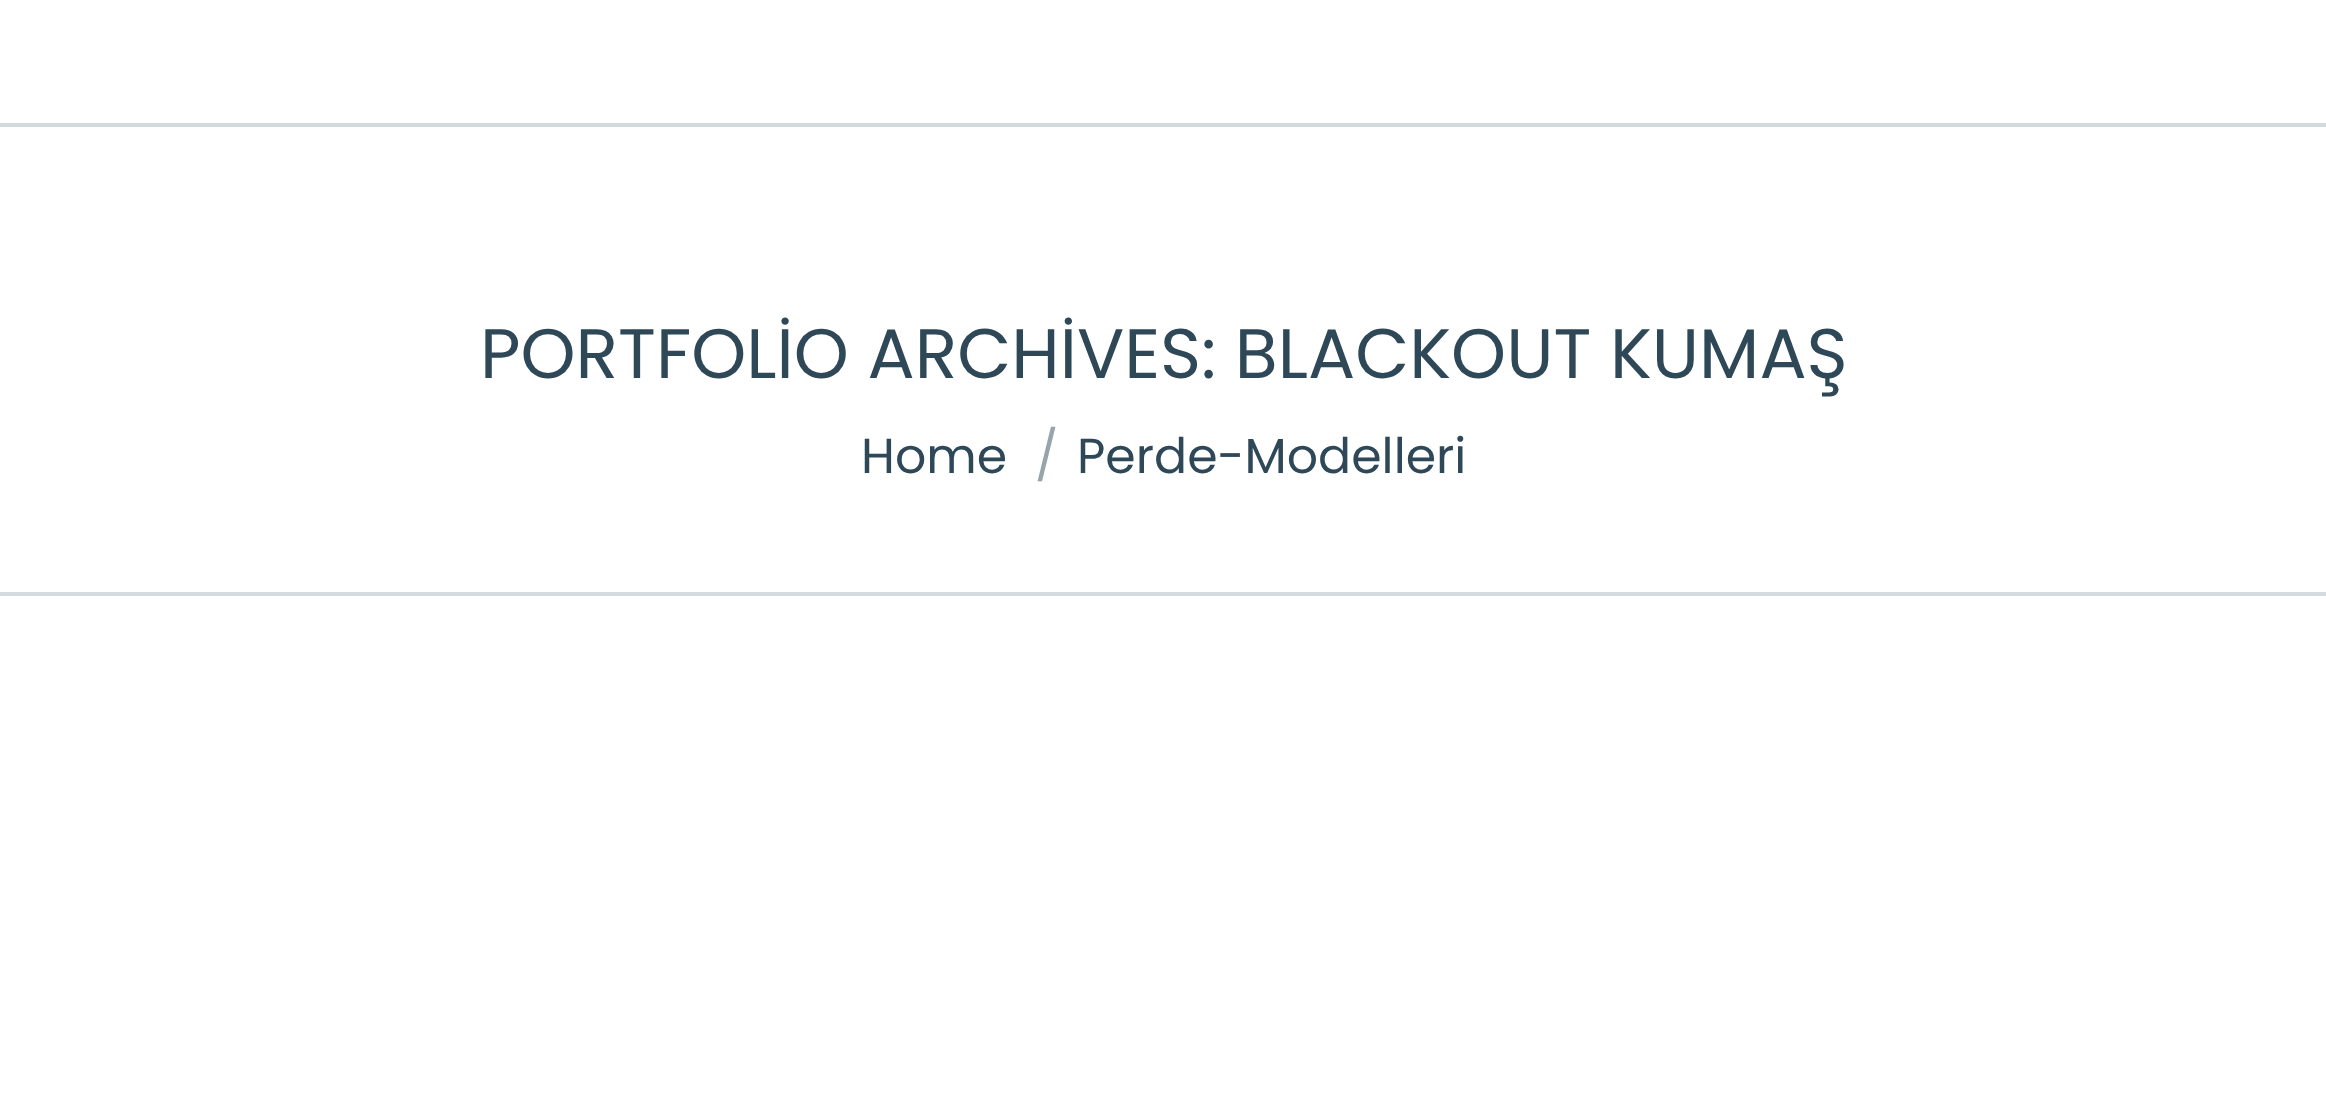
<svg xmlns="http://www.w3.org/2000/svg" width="2326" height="1093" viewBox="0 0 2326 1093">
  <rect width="100%" height="100%" fill="rgb(255,255,255)"/>
  <rect x="0" y="123" width="2326" height="4" fill="rgb(213,218,222)"/>
  <rect x="0" y="592" width="2326" height="4" fill="rgb(213,218,222)"/>
  <text x="480" y="378" font-family="Poppins" font-size="70" fill="rgb(47,72,88)">PORTFOLİO ARCHİVES: BLACKOUT KUMAŞ</text>
  <text x="861" y="473" font-family="Poppins" font-size="49" fill="rgb(47,72,88)">Home</text>
  <text x="1035" y="473" font-family="Poppins" font-size="49" fill="rgb(151,164,172)">/</text>
  <text x="1077" y="473" font-family="Poppins" font-size="49" fill="rgb(47,72,88)">Perde-Modelleri</text>
</svg>
